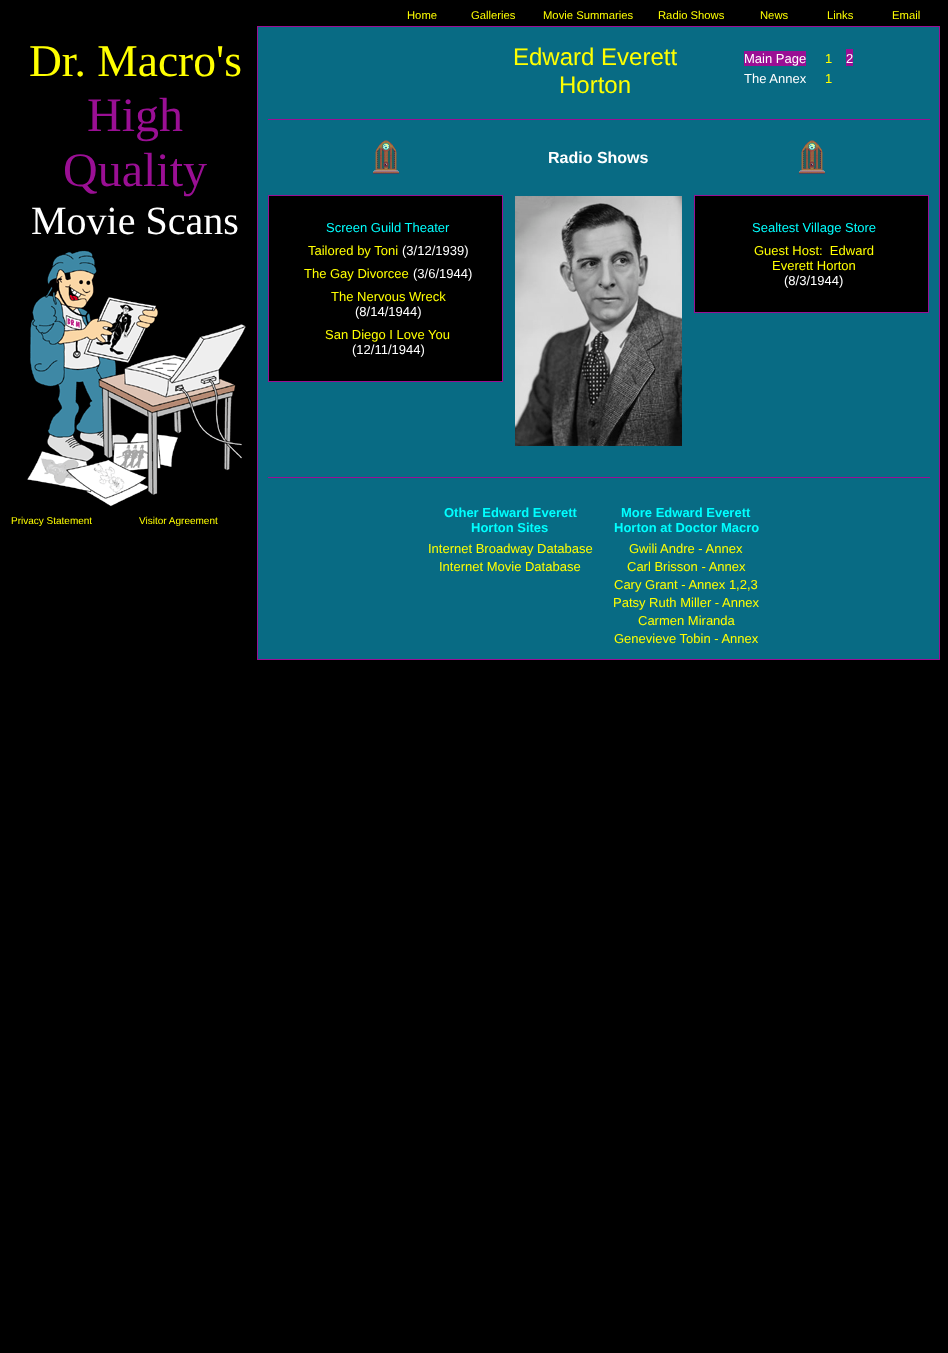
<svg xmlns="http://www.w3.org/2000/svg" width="948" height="1353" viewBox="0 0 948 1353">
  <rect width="100%" height="100%" fill="rgb(0,0,0)"/>
  <g font-family="Liberation Sans" font-size="11.25" fill="rgb(255,255,0)">
    <text x="407" y="19">Home</text>
    <text x="471" y="19">Galleries</text>
    <text x="543" y="19">Movie Summaries</text>
    <text x="658" y="19">Radio Shows</text>
    <text x="760" y="19">News</text>
    <text x="827" y="19">Links</text>
    <text x="892" y="19">Email</text>
  </g>
  <text x="29" y="76" font-family="Liberation Serif" font-size="45.5" fill="rgb(255,255,0)">Dr. Macro's</text>
  <g font-family="Liberation Serif" font-size="48" fill="rgb(154,15,148)">
    <text x="87" y="131">High</text>
    <text x="63" y="186">Quality</text>
  </g>
  <text x="31" y="234" font-family="Liberation Serif" font-size="40" fill="rgb(255,255,255)">Movie Scans</text>
  <image x="27" y="250" width="219" height="257" href="pic1.png"/>
  <g font-family="Liberation Sans" font-size="10" fill="rgb(255,255,0)">
    <text x="11" y="524">Privacy Statement</text>
    <text x="139" y="524">Visitor Agreement</text>
  </g>
  <rect x="257" y="26" width="683" height="1" fill="rgb(154,15,148)"/>
  <rect x="939" y="26" width="1" height="634" fill="rgb(154,15,148)"/>
  <rect x="257" y="659" width="683" height="1" fill="rgb(154,15,148)"/>
  <rect x="257" y="26" width="1" height="634" fill="rgb(154,15,148)"/>
  <rect x="258" y="27" width="681" height="632" fill="rgb(8,107,132)"/>
  <g font-family="Liberation Sans" font-size="24" fill="rgb(255,255,0)">
    <text x="513" y="65">Edward Everett</text>
    <text x="559" y="93">Horton</text>
  </g>
  <rect x="744" y="51" width="62" height="15" fill="rgb(154,15,148)"/>
  <text x="744" y="63" font-family="Liberation Sans" font-size="13" fill="rgb(255,255,255)">Main Page</text>
  <text x="825" y="63" font-family="Liberation Sans" font-size="13" fill="rgb(255,255,0)">1</text>
  <rect x="846" y="49" width="7" height="17" fill="rgb(154,15,148)"/>
  <g font-family="Liberation Sans" font-size="13" fill="rgb(255,255,255)">
    <text x="846" y="63">2</text>
    <text x="744" y="83">The Annex</text>
  </g>
  <text x="825" y="83" font-family="Liberation Sans" font-size="13" fill="rgb(255,255,0)">1</text>
  <rect x="268" y="119" width="662" height="1" fill="rgb(154,15,148)"/>
  <image x="373" y="140" width="26" height="34" href="pic2.png"/>
  <text x="548" y="163" font-family="Liberation Sans" font-size="16" font-weight="bold" fill="rgb(255,255,255)">Radio Shows</text>
  <image x="799" y="140" width="26" height="34" href="pic2.png"/>
  <rect x="268" y="381" width="235" height="1" fill="rgb(154,15,148)"/>
  <rect x="269" y="196" width="233" height="185" fill="rgb(0,0,0)"/>
  <rect x="268" y="195" width="235" height="1" fill="rgb(154,15,148)"/>
  <rect x="502" y="216" width="1" height="166" fill="rgb(154,15,148)"/>
  <rect x="502" y="195" width="1" height="22" fill="rgb(154,15,148)"/>
  <rect x="268" y="216" width="1" height="166" fill="rgb(154,15,148)"/>
  <rect x="268" y="195" width="1" height="22" fill="rgb(154,15,148)"/>
  <text x="326" y="232" font-family="Liberation Sans" font-size="13" fill="rgb(0,255,255)">Screen Guild Theater</text>
  <text x="308" y="255" font-family="Liberation Sans" font-size="13" fill="rgb(255,255,0)">Tailored by Toni</text>
  <text x="402" y="255" font-family="Liberation Sans" font-size="13" fill="rgb(255,255,255)">(3/12/1939)</text>
  <text x="304" y="278" font-family="Liberation Sans" font-size="13" fill="rgb(255,255,0)">The Gay Divorcee</text>
  <text x="413" y="278" font-family="Liberation Sans" font-size="13" fill="rgb(255,255,255)">(3/6/1944)</text>
  <text x="331" y="301" font-family="Liberation Sans" font-size="13" fill="rgb(255,255,0)">The Nervous Wreck</text>
  <text x="355" y="316" font-family="Liberation Sans" font-size="13" fill="rgb(255,255,255)">(8/14/1944)</text>
  <text x="325" y="339" font-family="Liberation Sans" font-size="13" fill="rgb(255,255,0)">San Diego I Love You</text>
  <text x="352" y="354" font-family="Liberation Sans" font-size="13" fill="rgb(255,255,255)">(12/11/1944)</text>
  <image x="515" y="196" width="167" height="250" href="pic3.png"/>
  <rect x="694" y="312" width="235" height="1" fill="rgb(154,15,148)"/>
  <rect x="695" y="196" width="233" height="116" fill="rgb(0,0,0)"/>
  <rect x="694" y="195" width="235" height="1" fill="rgb(154,15,148)"/>
  <rect x="928" y="216" width="1" height="97" fill="rgb(154,15,148)"/>
  <rect x="928" y="195" width="1" height="22" fill="rgb(154,15,148)"/>
  <rect x="694" y="216" width="1" height="97" fill="rgb(154,15,148)"/>
  <rect x="694" y="195" width="1" height="22" fill="rgb(154,15,148)"/>
  <text x="752" y="232" font-family="Liberation Sans" font-size="13" fill="rgb(0,255,255)">Sealtest Village Store</text>
  <g font-family="Liberation Sans" font-size="13" fill="rgb(255,255,0)">
    <text x="754" y="255" xml:space="preserve">Guest Host:  Edward</text>
    <text x="772" y="270">Everett Horton</text>
  </g>
  <text x="784" y="285" font-family="Liberation Sans" font-size="13" fill="rgb(255,255,255)">(8/3/1944)</text>
  <rect x="268" y="477" width="662" height="1" fill="rgb(154,15,148)"/>
  <g font-family="Liberation Sans" font-size="13" font-weight="bold" fill="rgb(0,255,255)">
    <text x="444" y="517">Other Edward Everett</text>
    <text x="471" y="532">Horton Sites</text>
  </g>
  <g font-family="Liberation Sans" font-size="13" fill="rgb(255,255,0)">
    <text x="428" y="553">Internet Broadway Database</text>
    <text x="439" y="571">Internet Movie Database</text>
  </g>
  <g font-family="Liberation Sans" font-size="13" font-weight="bold" fill="rgb(0,255,255)">
    <text x="621" y="517">More Edward Everett</text>
    <text x="614" y="532">Horton at Doctor Macro</text>
  </g>
  <g font-family="Liberation Sans" font-size="13" fill="rgb(255,255,0)">
    <text x="629" y="553">Gwili Andre - Annex</text>
    <text x="627" y="571">Carl Brisson - Annex</text>
    <text x="614" y="589">Cary Grant - Annex 1,2,3</text>
    <text x="613" y="607">Patsy Ruth Miller - Annex</text>
    <text x="638" y="625">Carmen Miranda</text>
    <text x="614" y="643">Genevieve Tobin - Annex</text>
  </g>
</svg>
